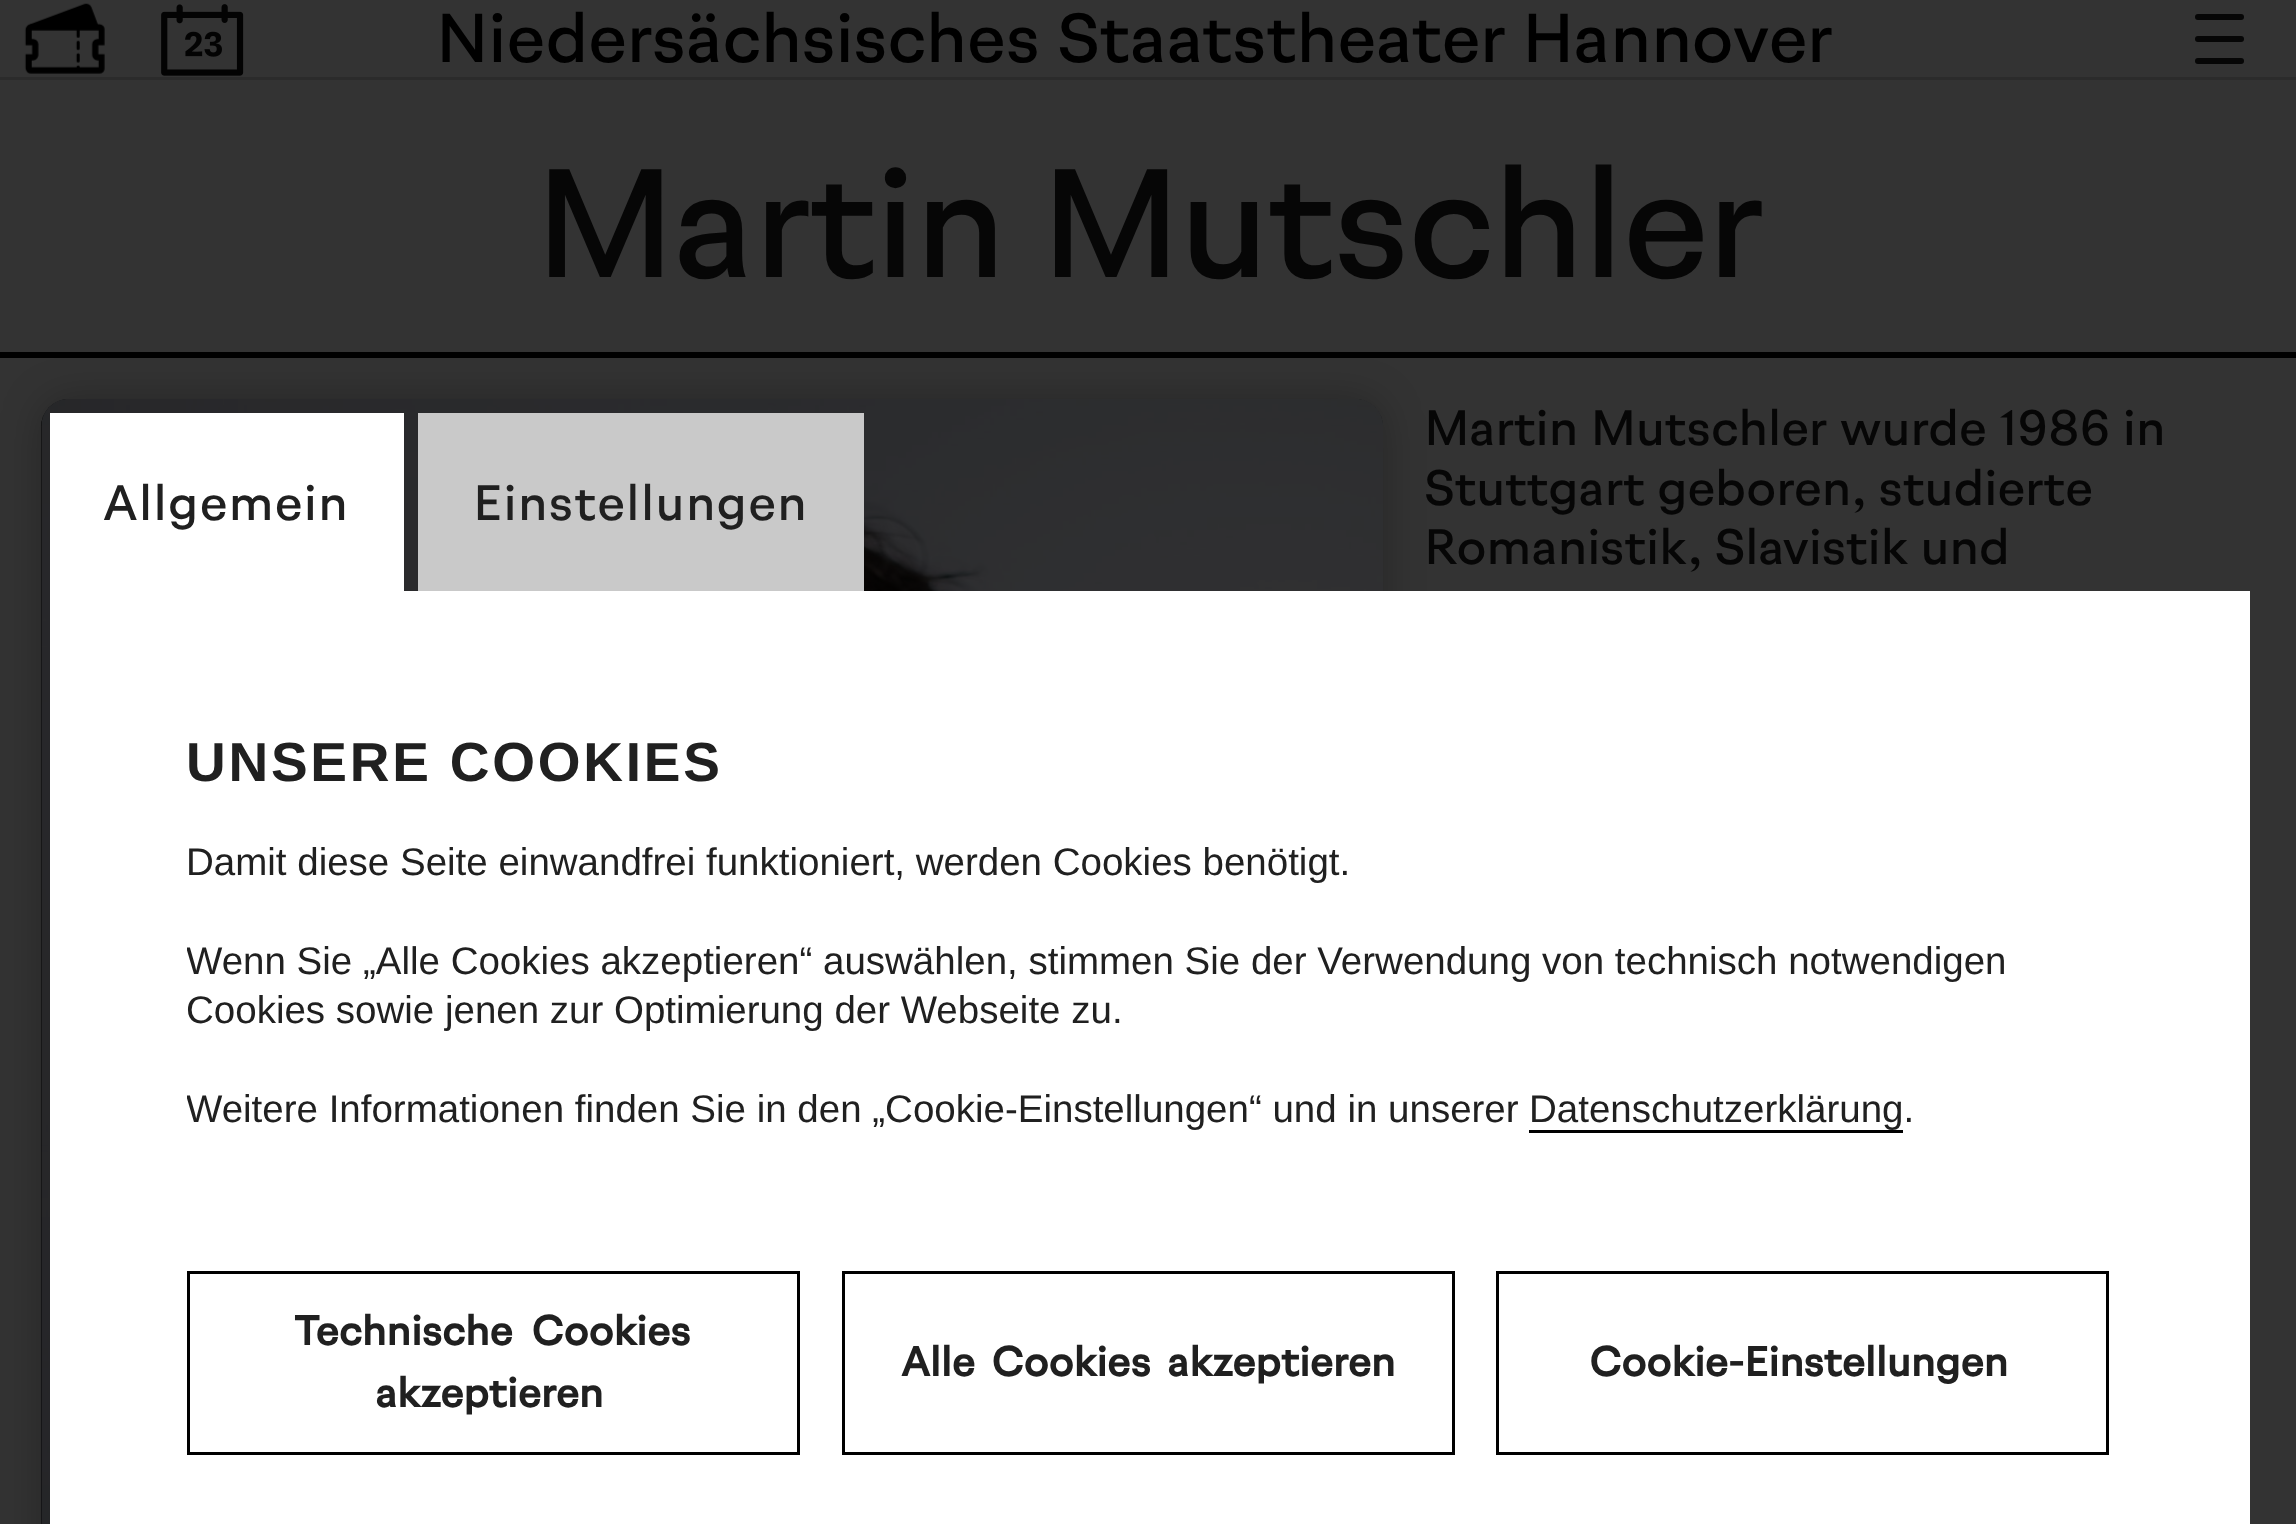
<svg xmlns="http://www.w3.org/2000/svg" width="2296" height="1524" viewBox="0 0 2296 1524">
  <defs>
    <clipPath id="clip1"><rect x="187" y="729" width="1925" height="753"/></clipPath>
  </defs>
  <rect width="100%" height="100%" fill="rgb(51,51,51)"/>
  <rect x="0" y="77" width="2296" height="3" fill="rgb(43,43,43)"/>
  <image x="24" y="3" width="81" height="71" href="pic1.png"/>
  <image x="161" y="4" width="83" height="72" href="pic2.png"/>
  <g font-family="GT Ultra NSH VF" font-size="68.9" fill="rgb(0,0,0)">
    <text x="436" y="62">Niedersächsisches</text>
    <text x="1057" y="62" word-spacing="-1">Staatstheater Hannover</text>
  </g>
  <rect x="2195" y="14" width="49" height="6" rx="3" fill="rgb(6,6,6)"/>
  <rect x="2195" y="36" width="49" height="6" rx="3" fill="rgb(6,6,6)"/>
  <rect x="2195" y="58" width="49" height="6" rx="3" fill="rgb(6,6,6)"/>
  <rect x="0" y="352" width="2296" height="6" fill="rgb(0,0,0)"/>
  <text x="534" y="277" word-spacing="-2" font-family="GT Ultra NSH VF" font-size="154" letter-spacing="-1.5" fill="rgb(6,6,6)">Martin Mutschler</text>
  <rect x="41" y="399" width="1342" height="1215" rx="28" fill="rgba(0,0,0,0.25)" filter="blur(20.5px)"/>
  <rect x="41" y="399" width="1342" height="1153" rx="28" fill="rgb(0,0,0)"/>
  <image x="41" y="399" width="1342" height="1125" href="pic3.png"/>
  <g font-family="GT Ultra NSH VF" font-size="49.5" fill="rgb(6,6,6)">
    <text>
      <tspan x="1424" y="445">Martin Mutschler wurde 1986 in</tspan>
      <tspan x="1424" y="505">Stuttgart geboren, studierte</tspan>
      <tspan x="1424" y="564">Romanistik, Slavistik und</tspan>
    </text>
  </g>
  <rect x="50" y="413" width="354" height="178" fill="rgb(255,255,255)"/>
  <text x="103" y="520" font-family="GT Ultra NSH VF" font-size="49.5" letter-spacing="1.4" fill="rgb(32,32,32)">Allgemein</text>
  <rect x="418" y="413" width="446" height="178" fill="rgb(201,201,201)"/>
  <text x="473" y="520" font-family="GT Ultra NSH VF" font-size="49.5" letter-spacing="1.4" fill="rgb(32,32,32)">Einstellungen</text>
  <rect x="50" y="591" width="2200" height="933" fill="rgb(255,255,255)"/>
  <text x="186" y="781" font-family="Liberation Sans" font-size="55" font-weight="bold" letter-spacing="2.75" fill="rgb(32,32,32)">UNSERE COOKIES</text>
  <text x="186" y="875" font-family="Liberation Sans" font-size="38.5" fill="rgb(32,32,32)">Damit diese Seite einwandfrei funktioniert, werden Cookies benötigt.</text>
  <g clip-path="url(#clip1)">
    <text x="186" y="974" font-family="Liberation Sans" font-size="38.5" fill="rgb(32,32,32)">Wenn Sie „Alle Cookies akzeptieren“ auswählen, stimmen Sie der Verwendung von technisch notwendigen</text>
  </g>
  <text x="186" y="1023" font-family="Liberation Sans" font-size="38.5" fill="rgb(32,32,32)">Cookies sowie jenen zur Optimierung der Webseite zu.</text>
  <g clip-path="url(#clip1)">
    <text x="186" y="1122" font-family="Liberation Sans" font-size="38.5" fill="rgb(32,32,32)">Weitere Informationen finden Sie in den „Cookie-Einstellungen“ und in unserer</text>
  </g>
  <text x="1529" y="1122" font-family="Liberation Sans" font-size="38.5" fill="rgb(32,32,32)">Datenschutzerklärung.</text>
  <rect x="1529" y="1130" width="374" height="3" fill="rgb(0,0,0)"/>
  <rect x="188.5" y="1272.5" width="610" height="181" fill="none" stroke="rgb(0,0,0)" stroke-width="3"/>
  <g font-family="GT Ultra NSH VF" font-size="41.25" font-weight="bold" fill="rgb(32,32,32)">
    <text x="294" y="1345" word-spacing="8">Technische Cookies</text>
    <text x="375" y="1407">akzeptieren</text>
  </g>
  <rect x="843.5" y="1272.5" width="610" height="181" fill="none" stroke="rgb(0,0,0)" stroke-width="3"/>
  <text x="901" y="1376" word-spacing="6" font-family="GT Ultra NSH VF" font-size="41.25" font-weight="bold" fill="rgb(32,32,32)">Alle Cookies akzeptieren</text>
  <rect x="1497.5" y="1272.5" width="610" height="181" fill="none" stroke="rgb(0,0,0)" stroke-width="3"/>
  <text x="1589" y="1376" font-family="GT Ultra NSH VF" font-size="41.25" font-weight="bold" fill="rgb(32,32,32)">Cookie-Einstellungen</text>
</svg>
